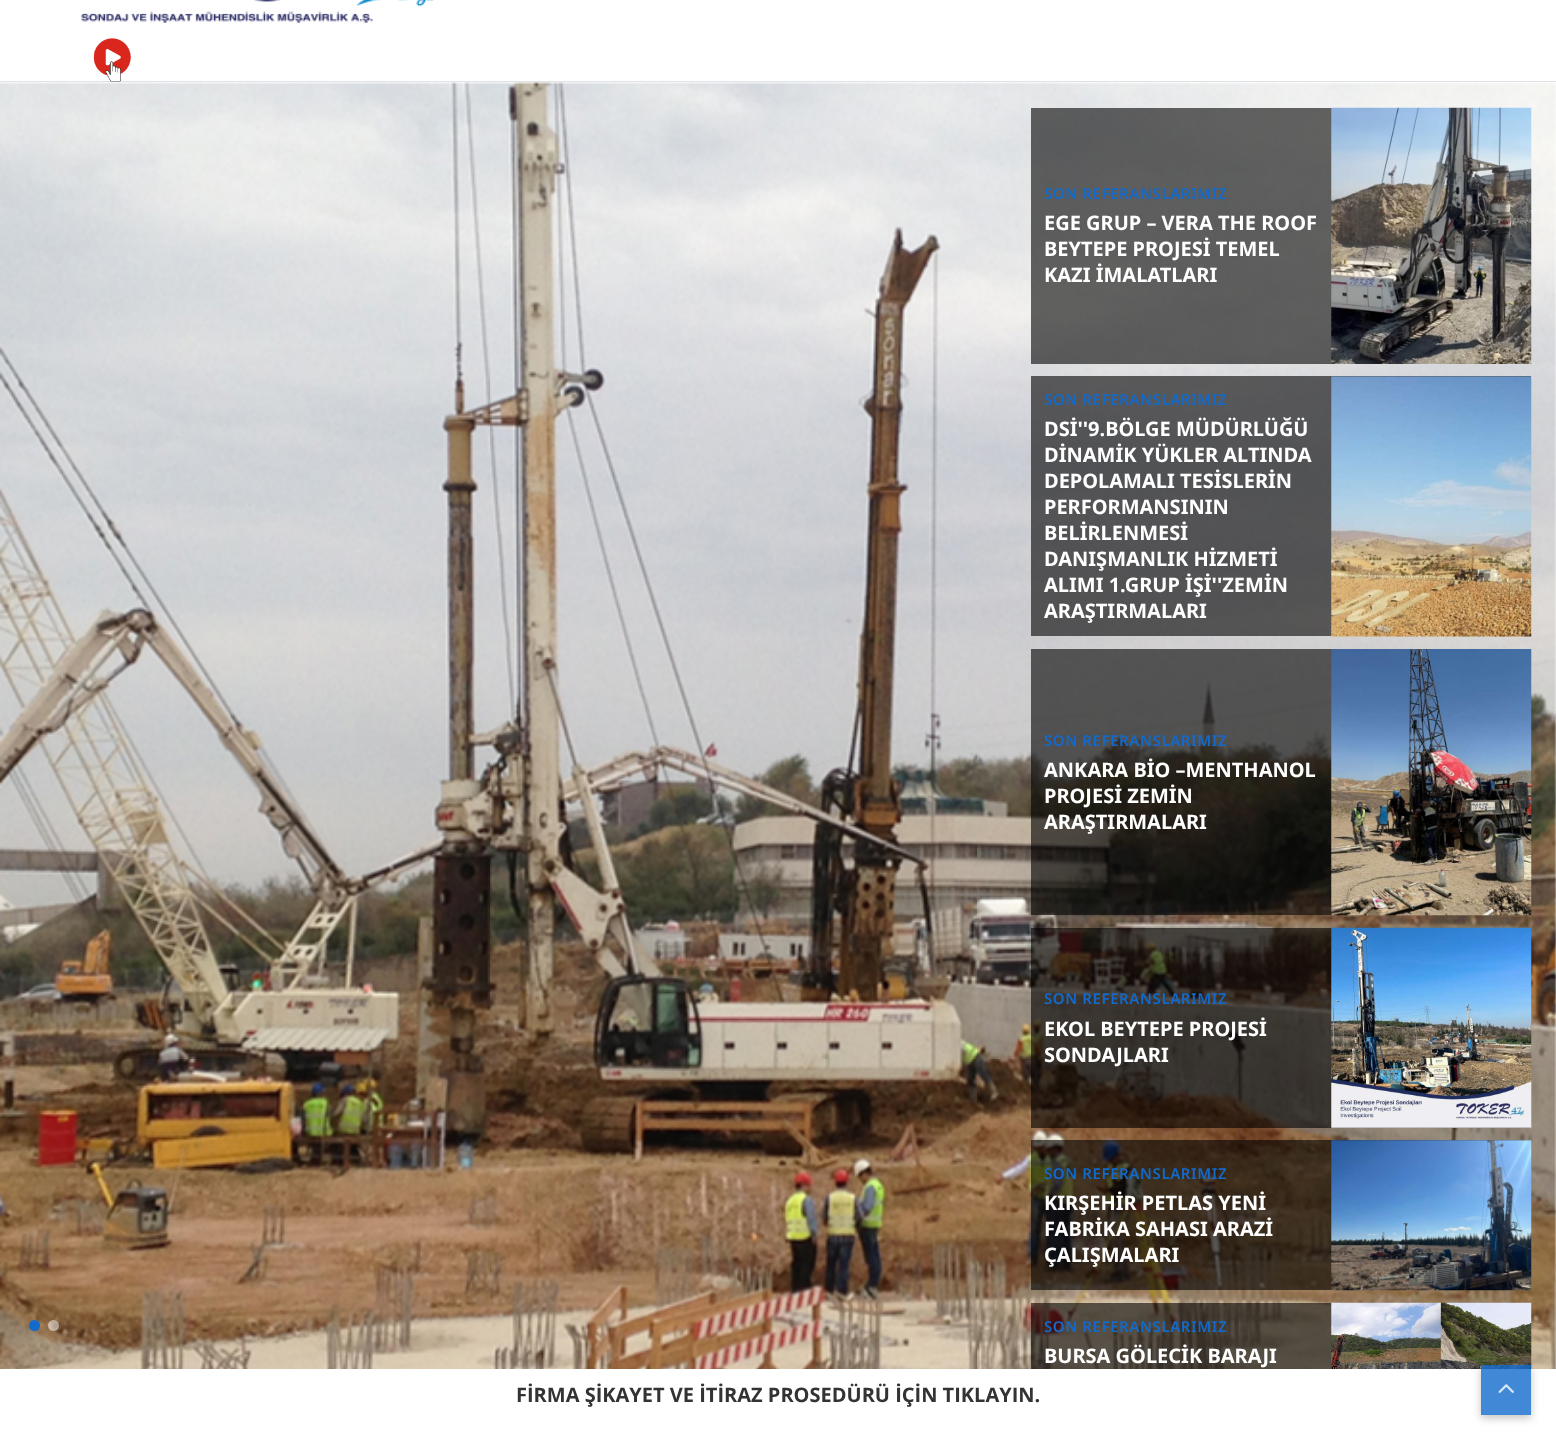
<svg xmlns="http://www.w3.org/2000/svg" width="1556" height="1440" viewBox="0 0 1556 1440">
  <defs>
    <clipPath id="clip1"><path d="M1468 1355H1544V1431H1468ZM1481 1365H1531V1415H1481Z" clip-rule="evenodd"/></clipPath>
  </defs>
  <rect width="100%" height="100%" fill="rgb(255,255,255)"/>
  <rect x="0" y="81" width="1556" height="1" fill="rgb(222,226,230)"/>
  <image x="81" y="0" width="353" height="23" href="pic1.png"/>
  <image x="93" y="38" width="38" height="44" href="pic2.png"/>
  <image x="0" y="82" width="1556" height="1287" href="pic3.png"/>
  <circle cx="34.5" cy="1325.5" r="5.5" fill="rgb(18,106,204)"/>
  <circle cx="53.5" cy="1325.5" r="5.5" fill="rgba(255,255,255,0.5)"/>
  <rect x="1031" y="108" width="301" height="256" fill="rgba(0,0,0,0.6)"/>
  <text x="1044" y="199" font-family="Noto Sans" font-size="15" font-weight="600" letter-spacing="0.6" fill="rgb(18,106,204)">SON REFERANSLARIMIZ</text>
  <g font-family="Noto Sans" font-size="20" font-weight="bold" fill="rgb(255,255,255)">
    <text>
      <tspan x="1044" y="230">EGE GRUP – VERA THE ROOF</tspan>
      <tspan x="1044" y="256">BEYTEPE PROJESİ TEMEL</tspan>
      <tspan x="1044" y="282">KAZI İMALATLARI</tspan>
    </text>
  </g>
  <image x="1331" y="107" width="201" height="257" href="pic4.png"/>
  <rect x="1031" y="376" width="500" height="260" fill="rgba(0,0,0,0.6)"/>
  <text x="1044" y="405" font-family="Noto Sans" font-size="15" font-weight="600" letter-spacing="0.6" fill="rgb(18,106,204)">SON REFERANSLARIMIZ</text>
  <g font-family="Noto Sans" font-size="20" font-weight="bold" fill="rgb(255,255,255)">
    <text>
      <tspan x="1044" y="436">DSİ''9.BÖLGE MÜDÜRLÜĞÜ</tspan>
      <tspan x="1044" y="462">DİNAMİK YÜKLER ALTINDA</tspan>
      <tspan x="1044" y="488">DEPOLAMALI TESİSLERİN</tspan>
      <tspan x="1044" y="514">PERFORMANSININ</tspan>
      <tspan x="1044" y="540">BELİRLENMESİ</tspan>
      <tspan x="1044" y="566">DANIŞMANLIK HİZMETİ</tspan>
      <tspan x="1044" y="592">ALIMI 1.GRUP İŞİ''ZEMİN</tspan>
      <tspan x="1044" y="618">ARAŞTIRMALARI</tspan>
    </text>
  </g>
  <image x="1331" y="376" width="201" height="261" href="pic5.png"/>
  <rect x="1031" y="649" width="301" height="266" fill="rgba(0,0,0,0.6)"/>
  <text x="1044" y="746" font-family="Noto Sans" font-size="15" font-weight="600" letter-spacing="0.6" fill="rgb(18,106,204)">SON REFERANSLARIMIZ</text>
  <g font-family="Noto Sans" font-size="20" font-weight="bold" fill="rgb(255,255,255)">
    <text>
      <tspan x="1044" y="777">ANKARA BİO –MENTHANOL</tspan>
      <tspan x="1044" y="803">PROJESİ ZEMİN</tspan>
      <tspan x="1044" y="829">ARAŞTIRMALARI</tspan>
    </text>
  </g>
  <image x="1331" y="649" width="201" height="267" href="pic6.png"/>
  <rect x="1031" y="928" width="500" height="200" fill="rgba(0,0,0,0.6)"/>
  <text x="1044" y="1004" font-family="Noto Sans" font-size="15" font-weight="600" letter-spacing="0.6" fill="rgb(18,106,204)">SON REFERANSLARIMIZ</text>
  <g font-family="Noto Sans" font-size="20" font-weight="bold" fill="rgb(255,255,255)">
    <text>
      <tspan x="1044" y="1036">EKOL BEYTEPE PROJESİ</tspan>
      <tspan x="1044" y="1062">SONDAJLARI</tspan>
    </text>
  </g>
  <image x="1331" y="927" width="201" height="201" href="pic7.png"/>
  <rect x="1031" y="1140" width="500" height="150" fill="rgba(0,0,0,0.6)"/>
  <text x="1044" y="1179" font-family="Noto Sans" font-size="15" font-weight="600" letter-spacing="0.6" fill="rgb(18,106,204)">SON REFERANSLARIMIZ</text>
  <g font-family="Noto Sans" font-size="20" font-weight="bold" fill="rgb(255,255,255)">
    <text>
      <tspan x="1044" y="1210">KIRŞEHİR PETLAS YENİ</tspan>
      <tspan x="1044" y="1236">FABRİKA SAHASI ARAZİ</tspan>
      <tspan x="1044" y="1262">ÇALIŞMALARI</tspan>
    </text>
  </g>
  <image x="1331" y="1140" width="201" height="151" href="pic8.png"/>
  <rect x="1031" y="1303" width="301" height="66" fill="rgba(0,0,0,0.6)"/>
  <text x="1044" y="1332" font-family="Noto Sans" font-size="15" font-weight="600" letter-spacing="0.6" fill="rgb(18,106,204)">SON REFERANSLARIMIZ</text>
  <text x="1044" y="1363" font-family="Noto Sans" font-size="20" font-weight="bold" fill="rgb(255,255,255)">BURSA GÖLECİK BARAJI</text>
  <image x="1331" y="1302" width="201" height="67" href="pic9.png"/>
  <text x="516" y="1402" font-family="Open Sans" font-size="20" font-weight="bold" fill="rgb(51,51,51)">FİRMA ŞİKAYET VE İTİRAZ PROSEDÜRÜ İÇİN TIKLAYIN.</text>
  <g clip-path="url(#clip1)">
    <rect x="1481" y="1368" width="50" height="50" fill="rgba(0,0,0,0.24)" filter="blur(4px)"/>
  </g>
  <rect x="1481" y="1365" width="50" height="50" fill="rgba(18,106,204,0.8)"/>
  <image x="1498" y="1384" width="16" height="9" href="pic10.png"/>
</svg>
